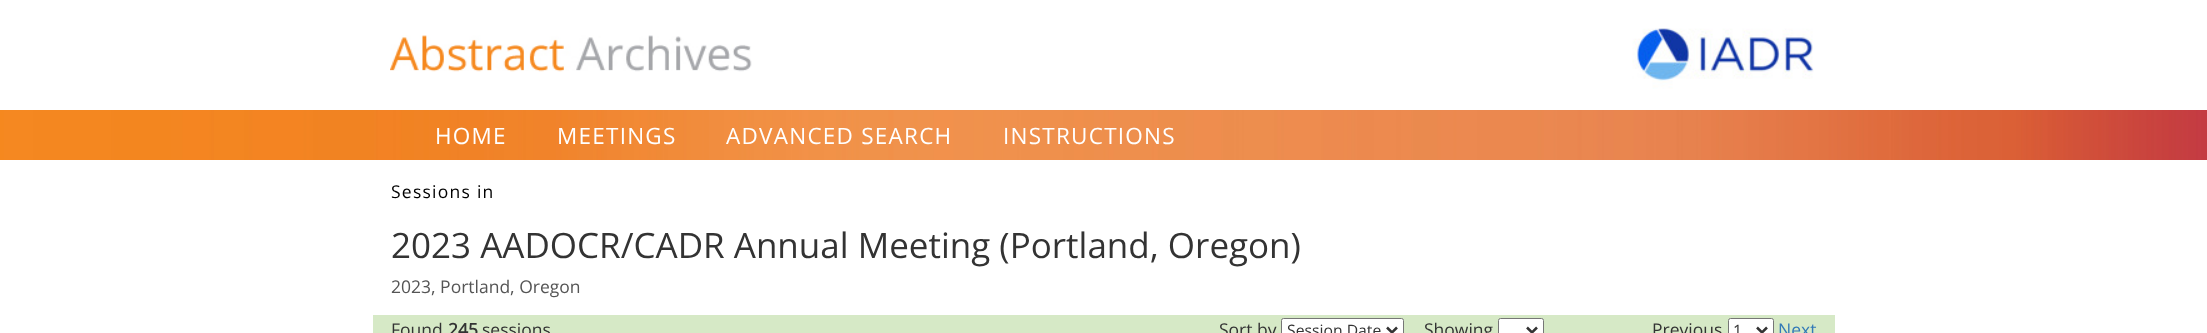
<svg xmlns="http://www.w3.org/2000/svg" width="2207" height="333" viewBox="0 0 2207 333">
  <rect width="100%" height="100%" fill="rgb(255,255,255)"/>
  <image x="390" y="35" width="362" height="37" href="pic1.png"/>
  <image x="1632" y="28" width="182" height="61" href="pic2.png"/>
  <image x="0" y="110" width="2207" height="50" href="pic3.png"/>
  <g font-family="Open Sans" font-size="22.5" letter-spacing="1.25" fill="rgb(255,255,255)">
    <text x="435" y="144">HOME</text>
    <text x="557" y="144">MEETINGS</text>
    <text x="726" y="144">ADVANCED SEARCH</text>
    <text x="1003" y="144">INSTRUCTIONS</text>
  </g>
  <text x="391" y="198" font-family="Open Sans" font-size="17.5" letter-spacing="1.25" fill="rgb(0,0,0)">Sessions in</text>
  <text x="391" y="258" font-family="Open Sans" font-size="35" fill="rgb(51,51,51)">2023 AADOCR/CADR Annual Meeting (Portland, Oregon)</text>
  <text x="391" y="293" font-family="Open Sans" font-size="17.5" fill="rgb(85,85,85)">2023, Portland, Oregon</text>
  <rect x="373" y="315" width="1462" height="18" fill="rgb(214,233,198)"/>
  <text x="391" y="336" font-family="Open Sans" font-size="17.5" fill="rgb(51,51,51)">Found</text>
  <text x="448" y="336" font-family="Open Sans" font-size="17.5" font-weight="bold" fill="rgb(51,51,51)">245</text>
  <g font-family="Open Sans" font-size="17.5" fill="rgb(51,51,51)">
    <text x="482" y="336">sessions</text>
    <text x="1219" y="336">Sort by</text>
  </g>
  <rect x="1281.5" y="318.5" width="122" height="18" rx="2" fill="rgb(255,255,255)" stroke="rgb(118,118,118)"/>
  <path d="M1387 327.5L1392 332.5L1397 327.5" fill="none" stroke="rgb(51,51,51)" stroke-width="2.5"/>
  <text x="1287" y="336" font-family="Open Sans" font-size="15.75" fill="rgb(51,51,51)">Session Date</text>
  <text x="1424" y="336" font-family="Open Sans" font-size="17.5" fill="rgb(51,51,51)">Showing</text>
  <rect x="1498.5" y="318.5" width="45" height="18" rx="2" fill="rgb(255,255,255)" stroke="rgb(118,118,118)"/>
  <path d="M1527 327.5L1532 332.5L1537 327.5" fill="none" stroke="rgb(51,51,51)" stroke-width="2.5"/>
  <text x="1652" y="336" font-family="Open Sans" font-size="17.5" fill="rgb(51,51,51)">Previous</text>
  <rect x="1728.5" y="318.5" width="45" height="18" rx="2" fill="rgb(255,255,255)" stroke="rgb(118,118,118)"/>
  <path d="M1757 327.5L1762 332.5L1767 327.5" fill="none" stroke="rgb(51,51,51)" stroke-width="2.5"/>
  <text x="1733" y="336" font-family="Open Sans" font-size="15.75" fill="rgb(51,51,51)">1</text>
  <text x="1778" y="336" font-family="Open Sans" font-size="17.5" fill="rgb(51,122,183)">Next</text>
</svg>
